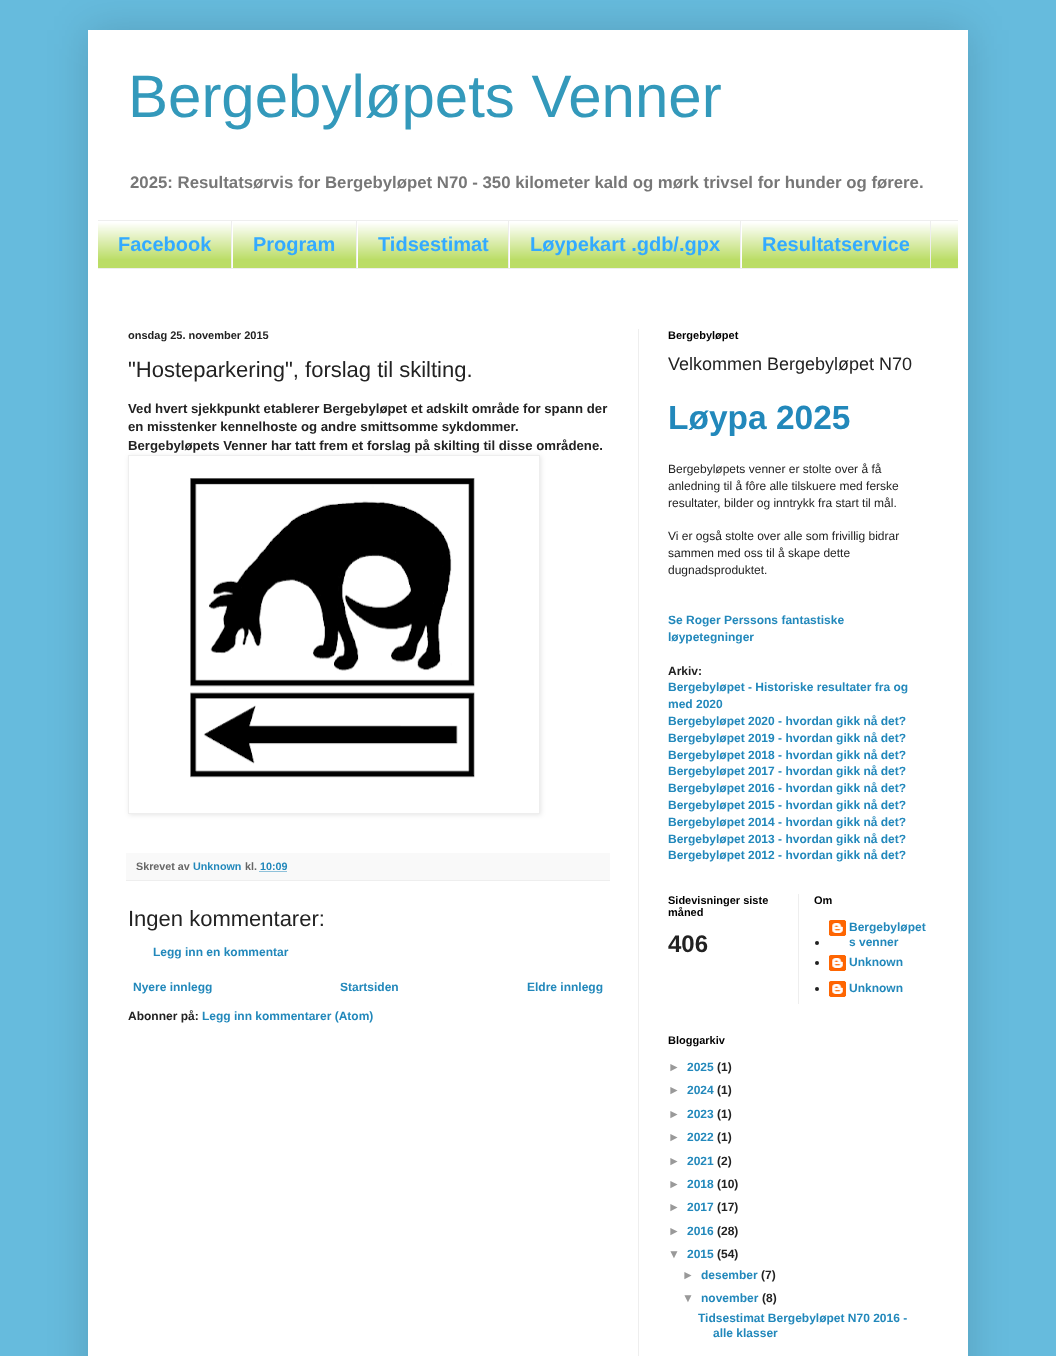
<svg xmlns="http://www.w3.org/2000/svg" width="1056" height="1356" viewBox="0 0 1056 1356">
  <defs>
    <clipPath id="clip1"><path d="M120 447H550V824H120ZM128 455H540V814H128Z" clip-rule="evenodd"/></clipPath>
  </defs>
  <rect width="100%" height="100%" fill="rgb(102,187,221)"/>
  <rect x="88" y="30" width="880" height="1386" fill="rgba(0,0,0,0.15)" filter="blur(20px)"/>
  <rect x="88" y="30" width="880" height="1326" fill="rgb(255,255,255)"/>
  <text x="128" y="117" font-family="Liberation Sans" font-size="60" fill="rgb(51,153,187)">Bergebyløpets Venner</text>
  <text x="130" y="188" font-family="Liberation Sans" font-size="16.8" font-weight="bold" fill="rgb(119,119,119)">2025: Resultatsørvis for Bergebyløpet N70 - 350 kilometer kald og mørk trivsel for hunder og førere.</text>
  <rect x="98" y="222" width="860" height="46" fill="rgb(187,221,102)"/>
  <image x="98" y="221" width="860" height="38" href="pic1.png"/>
  <rect x="98" y="220" width="860" height="1" fill="rgb(238,238,238)"/>
  <rect x="98" y="268" width="860" height="1" fill="rgb(238,238,238)"/>
  <rect x="231" y="221" width="1" height="47" fill="rgb(238,238,238)"/>
  <text x="118" y="251" font-family="Liberation Sans" font-size="20" font-weight="bold" fill="rgb(51,170,255)">Facebook</text>
  <rect x="356" y="221" width="1" height="47" fill="rgb(238,238,238)"/>
  <rect x="232" y="221" width="1" height="47" fill="rgb(255,255,255)"/>
  <text x="253" y="251" font-family="Liberation Sans" font-size="20" font-weight="bold" fill="rgb(51,170,255)">Program</text>
  <rect x="508" y="221" width="1" height="47" fill="rgb(238,238,238)"/>
  <rect x="357" y="221" width="1" height="47" fill="rgb(255,255,255)"/>
  <text x="378" y="251" font-family="Liberation Sans" font-size="20" font-weight="bold" fill="rgb(51,170,255)">Tidsestimat</text>
  <rect x="740" y="221" width="1" height="47" fill="rgb(238,238,238)"/>
  <rect x="509" y="221" width="1" height="47" fill="rgb(255,255,255)"/>
  <text x="530" y="251" font-family="Liberation Sans" font-size="20" font-weight="bold" fill="rgb(51,170,255)">Løypekart .gdb/.gpx</text>
  <rect x="930" y="221" width="1" height="47" fill="rgb(238,238,238)"/>
  <rect x="741" y="221" width="1" height="47" fill="rgb(255,255,255)"/>
  <text x="762" y="251" font-family="Liberation Sans" font-size="20" font-weight="bold" fill="rgb(51,170,255)">Resultatservice</text>
  <rect x="638" y="329" width="1" height="1027" fill="rgb(238,238,238)"/>
  <text x="128" y="339" font-family="Liberation Sans" font-size="11" font-weight="bold" fill="rgb(34,34,34)">onsdag 25. november 2015</text>
  <text x="128" y="377" font-family="Liberation Sans" font-size="22" fill="rgb(34,34,34)">"Hosteparkering", forslag til skilting.</text>
  <g font-family="Liberation Sans" font-size="13.2" font-weight="bold" fill="rgb(34,34,34)">
    <text>
      <tspan x="128" y="413">Ved hvert sjekkpunkt etablerer Bergebyløpet et adskilt område for spann der</tspan>
      <tspan x="128" y="431">en misstenker kennelhoste og andre smittsomme sykdommer.</tspan>
      <tspan x="128" y="450">Bergebyløpets Venner har tatt frem et forslag på skilting til disse områdene.</tspan>
    </text>
  </g>
  <g clip-path="url(#clip1)">
    <rect x="129" y="456" width="412" height="359" fill="rgba(0,0,0,0.1)" filter="blur(2.5px)"/>
  </g>
  <rect x="128.5" y="455.5" width="411" height="358" fill="none" stroke="rgb(238,238,238)"/>
  <image x="190" y="478" width="285" height="300" href="pic2.png"/>
  <rect x="126" y="853" width="484" height="27" fill="rgb(249,249,249)"/>
  <rect x="126" y="880" width="484" height="1" fill="rgb(238,238,238)"/>
  <text x="136" y="870" font-family="Liberation Sans" font-size="10.75" font-weight="bold" fill="rgb(102,102,102)">Skrevet av</text>
  <text x="193" y="870" font-family="Liberation Sans" font-size="10.75" font-weight="bold" fill="rgb(34,136,187)">Unknown</text>
  <text x="245" y="870" font-family="Liberation Sans" font-size="10.75" font-weight="bold" fill="rgb(102,102,102)">kl.</text>
  <text x="260" y="870" font-family="Liberation Sans" font-size="10.75" font-weight="bold" fill="rgb(34,136,187)">10:09</text>
  <path d="M259.5 871.5H287.5" fill="none" stroke="rgb(34,136,187)" stroke-dasharray="1 1"/>
  <text x="128" y="926" font-family="Liberation Sans" font-size="22" fill="rgb(34,34,34)">Ingen kommentarer:</text>
  <g font-family="Liberation Sans" font-size="12" font-weight="bold" fill="rgb(34,136,187)">
    <text x="153" y="956">Legg inn en kommentar</text>
    <text x="133" y="991">Nyere innlegg</text>
    <text x="340" y="991">Startsiden</text>
    <text x="527" y="991">Eldre innlegg</text>
  </g>
  <text x="128" y="1020" font-family="Liberation Sans" font-size="12" font-weight="bold" fill="rgb(34,34,34)">Abonner på:</text>
  <text x="202" y="1020" font-family="Liberation Sans" font-size="12" font-weight="bold" fill="rgb(34,136,187)">Legg inn kommentarer (Atom)</text>
  <text x="668" y="339" font-family="Liberation Sans" font-size="11" font-weight="bold" fill="rgb(0,0,0)">Bergebyløpet</text>
  <text x="668" y="370" font-family="Liberation Sans" font-size="18" fill="rgb(34,34,34)">Velkommen Bergebyløpet N70</text>
  <text x="668" y="429" font-family="Liberation Sans" font-size="33.5" font-weight="bold" fill="rgb(34,136,187)">Løypa 2025</text>
  <g font-family="Liberation Sans" font-size="12" fill="rgb(34,34,34)">
    <text>
      <tspan x="668" y="473">Bergebyløpets venner er stolte over å få</tspan>
      <tspan x="668" y="490">anledning til å fôre alle tilskuere med ferske</tspan>
      <tspan x="668" y="507">resultater, bilder og inntrykk fra start til mål.</tspan>
    </text>
    <text>
      <tspan x="668" y="540">Vi er også stolte over alle som frivillig bidrar</tspan>
      <tspan x="668" y="557">sammen med oss til å skape dette</tspan>
      <tspan x="668" y="574">dugnadsproduktet.</tspan>
    </text>
  </g>
  <g font-family="Liberation Sans" font-size="12" font-weight="bold" fill="rgb(34,136,187)">
    <text>
      <tspan x="668" y="624">Se Roger Perssons fantastiske</tspan>
      <tspan x="668" y="641">løypetegninger</tspan>
    </text>
  </g>
  <text x="668" y="675" font-family="Liberation Sans" font-size="12" font-weight="bold" fill="rgb(34,34,34)">Arkiv:</text>
  <g font-family="Liberation Sans" font-size="12" font-weight="bold" fill="rgb(34,136,187)">
    <text>
      <tspan x="668" y="691">Bergebyløpet - Historiske resultater fra og</tspan>
      <tspan x="668" y="708">med 2020</tspan>
      <tspan x="668" y="725">Bergebyløpet 2020 - hvordan gikk nå det?</tspan>
      <tspan x="668" y="742">Bergebyløpet 2019 - hvordan gikk nå det?</tspan>
      <tspan x="668" y="759">Bergebyløpet 2018 - hvordan gikk nå det?</tspan>
      <tspan x="668" y="775">Bergebyløpet 2017 - hvordan gikk nå det?</tspan>
      <tspan x="668" y="792">Bergebyløpet 2016 - hvordan gikk nå det?</tspan>
      <tspan x="668" y="809">Bergebyløpet 2015 - hvordan gikk nå det?</tspan>
      <tspan x="668" y="826">Bergebyløpet 2014 - hvordan gikk nå det?</tspan>
      <tspan x="668" y="843">Bergebyløpet 2013 - hvordan gikk nå det?</tspan>
      <tspan x="668" y="859">Bergebyløpet 2012 - hvordan gikk nå det?</tspan>
    </text>
  </g>
  <g font-family="Liberation Sans" font-size="11" font-weight="bold" fill="rgb(0,0,0)">
    <text>
      <tspan x="668" y="904">Sidevisninger siste</tspan>
      <tspan x="668" y="916">måned</tspan>
    </text>
  </g>
  <text x="668" y="952" font-family="Liberation Sans" font-size="24" font-weight="bold" fill="rgb(34,34,34)">406</text>
  <rect x="798" y="894" width="1" height="110" fill="rgb(238,238,238)"/>
  <text x="814" y="904" font-family="Liberation Sans" font-size="11" font-weight="bold" fill="rgb(0,0,0)">Om</text>
  <circle cx="817" cy="943" r="2" fill="rgb(34,34,34)"/>
  <image x="829" y="920" width="17" height="16" href="pic3.png"/>
  <g font-family="Liberation Sans" font-size="12" font-weight="bold" fill="rgb(34,136,187)">
    <text>
      <tspan x="849" y="931">Bergebyløpet</tspan>
      <tspan x="849" y="946">s venner</tspan>
    </text>
  </g>
  <circle cx="817" cy="963" r="2" fill="rgb(34,34,34)"/>
  <image x="829" y="955" width="17" height="16" href="pic3.png"/>
  <text x="849" y="966" font-family="Liberation Sans" font-size="12" font-weight="bold" fill="rgb(34,136,187)">Unknown</text>
  <circle cx="817" cy="989" r="2" fill="rgb(34,34,34)"/>
  <image x="829" y="981" width="17" height="16" href="pic3.png"/>
  <text x="849" y="992" font-family="Liberation Sans" font-size="12" font-weight="bold" fill="rgb(34,136,187)">Unknown</text>
  <text x="668" y="1044" font-family="Liberation Sans" font-size="11" font-weight="bold" fill="rgb(0,0,0)">Bloggarkiv</text>
  <text x="668" y="1071" font-family="Liberation Sans" font-size="12" font-weight="bold" fill="rgb(153,153,153)">►</text>
  <text x="687" y="1071" font-family="Liberation Sans" font-size="12" font-weight="bold" fill="rgb(34,136,187)">2025</text>
  <text x="717" y="1071" font-family="Liberation Sans" font-size="12" font-weight="bold" fill="rgb(34,34,34)">(1)</text>
  <text x="668" y="1094" font-family="Liberation Sans" font-size="12" font-weight="bold" fill="rgb(153,153,153)">►</text>
  <text x="687" y="1094" font-family="Liberation Sans" font-size="12" font-weight="bold" fill="rgb(34,136,187)">2024</text>
  <text x="717" y="1094" font-family="Liberation Sans" font-size="12" font-weight="bold" fill="rgb(34,34,34)">(1)</text>
  <text x="668" y="1118" font-family="Liberation Sans" font-size="12" font-weight="bold" fill="rgb(153,153,153)">►</text>
  <text x="687" y="1118" font-family="Liberation Sans" font-size="12" font-weight="bold" fill="rgb(34,136,187)">2023</text>
  <text x="717" y="1118" font-family="Liberation Sans" font-size="12" font-weight="bold" fill="rgb(34,34,34)">(1)</text>
  <text x="668" y="1141" font-family="Liberation Sans" font-size="12" font-weight="bold" fill="rgb(153,153,153)">►</text>
  <text x="687" y="1141" font-family="Liberation Sans" font-size="12" font-weight="bold" fill="rgb(34,136,187)">2022</text>
  <text x="717" y="1141" font-family="Liberation Sans" font-size="12" font-weight="bold" fill="rgb(34,34,34)">(1)</text>
  <text x="668" y="1165" font-family="Liberation Sans" font-size="12" font-weight="bold" fill="rgb(153,153,153)">►</text>
  <text x="687" y="1165" font-family="Liberation Sans" font-size="12" font-weight="bold" fill="rgb(34,136,187)">2021</text>
  <text x="717" y="1165" font-family="Liberation Sans" font-size="12" font-weight="bold" fill="rgb(34,34,34)">(2)</text>
  <text x="668" y="1188" font-family="Liberation Sans" font-size="12" font-weight="bold" fill="rgb(153,153,153)">►</text>
  <text x="687" y="1188" font-family="Liberation Sans" font-size="12" font-weight="bold" fill="rgb(34,136,187)">2018</text>
  <text x="717" y="1188" font-family="Liberation Sans" font-size="12" font-weight="bold" fill="rgb(34,34,34)">(10)</text>
  <text x="668" y="1211" font-family="Liberation Sans" font-size="12" font-weight="bold" fill="rgb(153,153,153)">►</text>
  <text x="687" y="1211" font-family="Liberation Sans" font-size="12" font-weight="bold" fill="rgb(34,136,187)">2017</text>
  <text x="717" y="1211" font-family="Liberation Sans" font-size="12" font-weight="bold" fill="rgb(34,34,34)">(17)</text>
  <text x="668" y="1235" font-family="Liberation Sans" font-size="12" font-weight="bold" fill="rgb(153,153,153)">►</text>
  <text x="687" y="1235" font-family="Liberation Sans" font-size="12" font-weight="bold" fill="rgb(34,136,187)">2016</text>
  <text x="717" y="1235" font-family="Liberation Sans" font-size="12" font-weight="bold" fill="rgb(34,34,34)">(28)</text>
  <text x="668" y="1258" font-family="Liberation Sans" font-size="12" font-weight="bold" fill="rgb(153,153,153)">▼</text>
  <text x="687" y="1258" font-family="Liberation Sans" font-size="12" font-weight="bold" fill="rgb(34,136,187)">2015</text>
  <text x="717" y="1258" font-family="Liberation Sans" font-size="12" font-weight="bold" fill="rgb(34,34,34)">(54)</text>
  <text x="682" y="1279" font-family="Liberation Sans" font-size="12" font-weight="bold" fill="rgb(153,153,153)">►</text>
  <text x="701" y="1279" font-family="Liberation Sans" font-size="12" font-weight="bold" fill="rgb(34,136,187)">desember</text>
  <text x="761" y="1279" font-family="Liberation Sans" font-size="12" font-weight="bold" fill="rgb(34,34,34)">(7)</text>
  <text x="682" y="1302" font-family="Liberation Sans" font-size="12" font-weight="bold" fill="rgb(153,153,153)">▼</text>
  <text x="701" y="1302" font-family="Liberation Sans" font-size="12" font-weight="bold" fill="rgb(34,136,187)">november</text>
  <text x="762" y="1302" font-family="Liberation Sans" font-size="12" font-weight="bold" fill="rgb(34,34,34)">(8)</text>
  <g font-family="Liberation Sans" font-size="12" font-weight="bold" fill="rgb(34,136,187)">
    <text x="698" y="1322">Tidsestimat Bergebyløpet N70 2016 -</text>
    <text x="713" y="1337">alle klasser</text>
  </g>
</svg>
